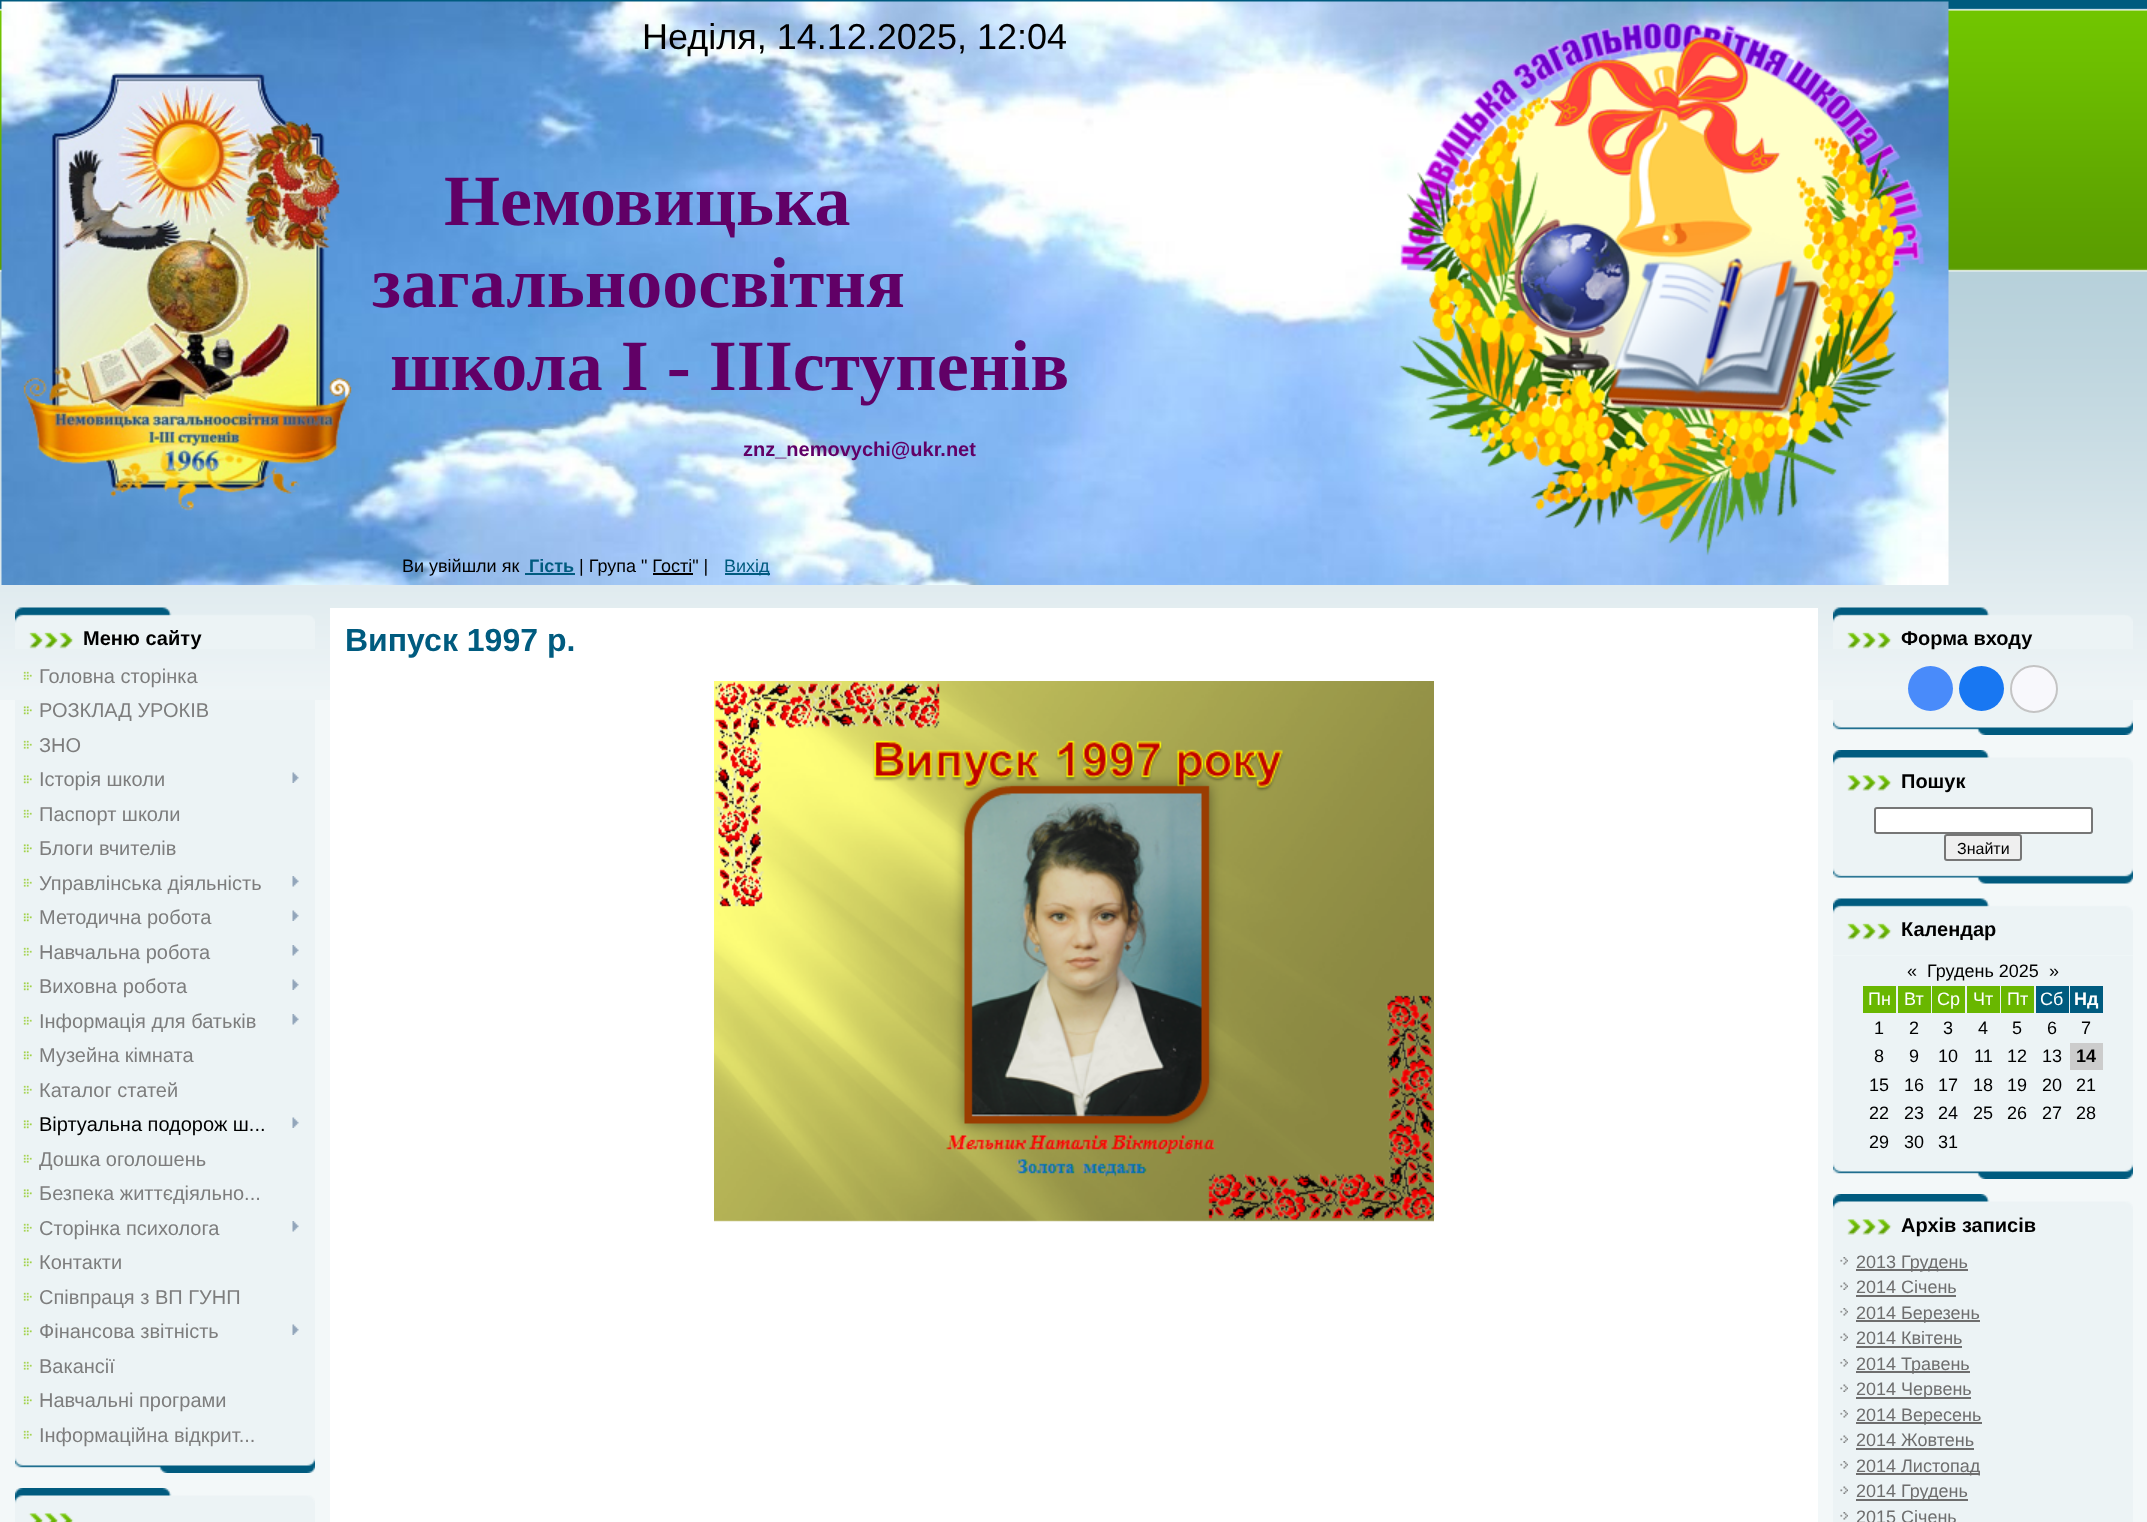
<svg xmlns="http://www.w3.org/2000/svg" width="2147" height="1522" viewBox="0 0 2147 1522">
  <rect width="100%" height="100%" fill="rgb(243,248,249)"/>
  <image x="0" y="0" width="2147" height="700" href="pic1.png"/>
  <image x="1" y="1" width="1948" height="584" href="pic2.png"/>
  <text x="642" y="49" font-family="Liberation Sans" font-size="36" fill="rgb(0,0,0)">Неділя, 14.12.2025, 12:04</text>
  <image x="1399" y="21" width="526" height="535" href="pic3.png"/>
  <image x="23" y="73" width="329" height="438" href="pic4.png"/>
  <g font-family="Liberation Serif" font-size="72" font-weight="bold" fill="rgb(97,0,102)">
    <text x="444" y="225">Немовицька</text>
    <text x="372" y="307">загальноосвітня</text>
    <text x="390" y="390">школа І - ІІІступенів</text>
  </g>
  <text x="743" y="456" font-family="Liberation Sans" font-size="20" font-weight="bold" fill="rgb(97,0,102)">znz_nemovychi@ukr.net</text>
  <text x="402" y="572" font-family="Liberation Sans" font-size="18" fill="rgb(0,0,0)">Ви увійшли як</text>
  <text x="529" y="572" font-family="Liberation Sans" font-size="18" font-weight="bold" fill="rgb(0,91,127)">Гість</text>
  <rect x="525" y="573" width="50" height="2" fill="rgb(0,91,127)"/>
  <text x="579" y="572" font-family="Liberation Sans" font-size="18" fill="rgb(0,0,0)">| Група " Гості" |</text>
  <rect x="725" y="573" width="45" height="2" fill="rgb(0,91,127)"/>
  <text x="724" y="572" font-family="Liberation Sans" font-size="18" fill="rgb(0,91,127)">Вихід</text>
  <rect x="653" y="573" width="40" height="2" fill="rgb(0,0,0)"/>
  <image x="15" y="607" width="300" height="42" href="pic5.png"/>
  <text x="83" y="645" font-family="Liberation Sans" font-size="20" font-weight="bold" fill="rgb(0,0,0)">Меню сайту</text>
  <image x="15" y="700" width="300" height="773" href="pic6.png"/>
  <image x="23" y="671" width="9" height="9" href="pic7.png"/>
  <text x="39" y="683" font-family="Liberation Sans" font-size="20" fill="rgb(125,125,125)">Головна сторінка</text>
  <image x="23" y="706" width="9" height="9" href="pic8.png"/>
  <text x="39" y="717" font-family="Liberation Sans" font-size="20" fill="rgb(125,125,125)">РОЗКЛАД УРОКІВ</text>
  <image x="23" y="740" width="9" height="9" href="pic9.png"/>
  <text x="39" y="752" font-family="Liberation Sans" font-size="20" fill="rgb(125,125,125)">ЗНО</text>
  <image x="23" y="775" width="9" height="9" href="pic8.png"/>
  <text x="39" y="786" font-family="Liberation Sans" font-size="20" fill="rgb(125,125,125)">Історія школи</text>
  <image x="292" y="772" width="7" height="11" href="pic10.png"/>
  <image x="23" y="809" width="9" height="9" href="pic9.png"/>
  <text x="39" y="821" font-family="Liberation Sans" font-size="20" fill="rgb(125,125,125)">Паспорт школи</text>
  <image x="23" y="844" width="9" height="9" href="pic8.png"/>
  <text x="39" y="855" font-family="Liberation Sans" font-size="20" fill="rgb(125,125,125)">Блоги вчителів</text>
  <image x="23" y="878" width="9" height="9" href="pic9.png"/>
  <text x="39" y="890" font-family="Liberation Sans" font-size="20" fill="rgb(125,125,125)">Управлінська діяльність</text>
  <image x="292" y="876" width="7" height="11" href="pic11.png"/>
  <image x="23" y="913" width="9" height="9" href="pic8.png"/>
  <text x="39" y="924" font-family="Liberation Sans" font-size="20" fill="rgb(125,125,125)">Методична робота</text>
  <image x="292" y="910" width="7" height="11" href="pic10.png"/>
  <image x="23" y="947" width="9" height="9" href="pic9.png"/>
  <text x="39" y="959" font-family="Liberation Sans" font-size="20" fill="rgb(125,125,125)">Навчальна робота</text>
  <image x="292" y="945" width="7" height="11" href="pic11.png"/>
  <image x="23" y="982" width="9" height="9" href="pic8.png"/>
  <text x="39" y="993" font-family="Liberation Sans" font-size="20" fill="rgb(125,125,125)">Виховна робота</text>
  <image x="292" y="979" width="7" height="11" href="pic10.png"/>
  <image x="23" y="1016" width="9" height="9" href="pic9.png"/>
  <text x="39" y="1028" font-family="Liberation Sans" font-size="20" fill="rgb(125,125,125)">Інформація для батьків</text>
  <image x="292" y="1014" width="7" height="11" href="pic11.png"/>
  <image x="23" y="1051" width="9" height="9" href="pic8.png"/>
  <text x="39" y="1062" font-family="Liberation Sans" font-size="20" fill="rgb(125,125,125)">Музейна кімната</text>
  <image x="23" y="1085" width="9" height="9" href="pic9.png"/>
  <text x="39" y="1097" font-family="Liberation Sans" font-size="20" fill="rgb(125,125,125)">Каталог статей</text>
  <image x="23" y="1120" width="9" height="9" href="pic8.png"/>
  <text x="39" y="1131" font-family="Liberation Sans" font-size="20" fill="rgb(0,0,0)">Віртуальна подорож ш...</text>
  <image x="292" y="1117" width="7" height="11" href="pic10.png"/>
  <image x="23" y="1154" width="9" height="9" href="pic9.png"/>
  <text x="39" y="1166" font-family="Liberation Sans" font-size="20" fill="rgb(125,125,125)">Дошка оголошень</text>
  <image x="23" y="1189" width="9" height="9" href="pic8.png"/>
  <text x="39" y="1200" font-family="Liberation Sans" font-size="20" fill="rgb(125,125,125)">Безпека життєдіяльно...</text>
  <image x="23" y="1223" width="9" height="9" href="pic9.png"/>
  <text x="39" y="1235" font-family="Liberation Sans" font-size="20" fill="rgb(125,125,125)">Сторінка психолога</text>
  <image x="292" y="1221" width="7" height="11" href="pic11.png"/>
  <image x="23" y="1258" width="9" height="9" href="pic8.png"/>
  <text x="39" y="1269" font-family="Liberation Sans" font-size="20" fill="rgb(125,125,125)">Контакти</text>
  <image x="23" y="1292" width="9" height="9" href="pic9.png"/>
  <text x="39" y="1304" font-family="Liberation Sans" font-size="20" fill="rgb(125,125,125)">Співпраця з ВП ГУНП</text>
  <image x="23" y="1327" width="9" height="9" href="pic8.png"/>
  <text x="39" y="1338" font-family="Liberation Sans" font-size="20" fill="rgb(125,125,125)">Фінансова звітність</text>
  <image x="292" y="1324" width="7" height="11" href="pic10.png"/>
  <image x="23" y="1361" width="9" height="9" href="pic9.png"/>
  <text x="39" y="1373" font-family="Liberation Sans" font-size="20" fill="rgb(125,125,125)">Вакансії</text>
  <image x="23" y="1396" width="9" height="9" href="pic8.png"/>
  <text x="39" y="1407" font-family="Liberation Sans" font-size="20" fill="rgb(125,125,125)">Навчальні програми</text>
  <image x="23" y="1430" width="9" height="9" href="pic9.png"/>
  <text x="39" y="1442" font-family="Liberation Sans" font-size="20" fill="rgb(125,125,125)">Інформаційна відкрит...</text>
  <image x="15" y="1488" width="300" height="34" href="pic12.png"/>
  <rect x="330" y="608" width="1488" height="914" fill="rgb(255,255,255)"/>
  <text x="345" y="651" font-family="Liberation Sans" font-size="32" font-weight="bold" fill="rgb(0,91,127)">Випуск 1997 р.</text>
  <image x="714" y="681" width="720" height="541" href="pic13.png"/>
  <image x="1833" y="607" width="300" height="42" href="pic14.png"/>
  <text x="1901" y="645" font-family="Liberation Sans" font-size="20" font-weight="bold" fill="rgb(0,0,0)">Форма входу</text>
  <image x="1833" y="700" width="300" height="35" href="pic15.png"/>
  <circle cx="1930.5" cy="688.5" r="22.5" fill="rgb(73,139,250)"/>
  <circle cx="1981.5" cy="688.5" r="22.5" fill="rgb(24,119,242)"/>
  <circle cx="2034" cy="689" r="23" fill="rgb(248,248,252)" stroke="rgb(196,196,196)" stroke-width="2"/>
  <image x="1833" y="750" width="300" height="57" href="pic16.png"/>
  <text x="1901" y="788" font-family="Liberation Sans" font-size="20" font-weight="bold" fill="rgb(0,0,0)">Пошук</text>
  <image x="1833" y="807" width="300" height="77" href="pic17.png"/>
  <rect x="1875" y="808" width="217" height="25" rx="2" fill="rgb(255,255,255)" stroke="rgb(118,118,118)" stroke-width="2"/>
  <rect x="1945" y="835" width="76" height="25" rx="2" fill="rgb(239,239,239)" stroke="rgb(118,118,118)" stroke-width="2"/>
  <text x="1957" y="854" font-family="Liberation Sans" font-size="16" fill="rgb(0,0,0)">Знайти</text>
  <image x="1833" y="898" width="300" height="58" href="pic18.png"/>
  <text x="1901" y="936" font-family="Liberation Sans" font-size="20" font-weight="bold" fill="rgb(0,0,0)">Календар</text>
  <image x="1833" y="956" width="300" height="223" href="pic19.png"/>
  <g font-family="Liberation Sans" font-size="18" fill="rgb(0,0,0)">
    <text x="1907" y="977">«</text>
    <text x="1927" y="977">Грудень 2025</text>
    <text x="2049" y="977">»</text>
  </g>
  <rect x="1863" y="986" width="33" height="27" fill="rgb(105,183,0)"/>
  <text x="1868" y="1005" font-family="Liberation Sans" font-size="18" fill="rgb(255,255,255)">Пн</text>
  <rect x="1898" y="986" width="33" height="27" fill="rgb(105,183,0)"/>
  <text x="1904" y="1005" font-family="Liberation Sans" font-size="18" fill="rgb(255,255,255)">Вт</text>
  <rect x="1932" y="986" width="33" height="27" fill="rgb(105,183,0)"/>
  <text x="1937" y="1005" font-family="Liberation Sans" font-size="18" fill="rgb(255,255,255)">Ср</text>
  <rect x="1967" y="986" width="33" height="27" fill="rgb(105,183,0)"/>
  <text x="1973" y="1005" font-family="Liberation Sans" font-size="18" fill="rgb(255,255,255)">Чт</text>
  <rect x="2001" y="986" width="33" height="27" fill="rgb(105,183,0)"/>
  <text x="2007" y="1005" font-family="Liberation Sans" font-size="18" fill="rgb(255,255,255)">Пт</text>
  <rect x="2036" y="986" width="33" height="27" fill="rgb(0,91,127)"/>
  <text x="2040" y="1005" font-family="Liberation Sans" font-size="18" fill="rgb(255,255,255)">Сб</text>
  <rect x="2070" y="986" width="33" height="27" fill="rgb(0,91,127)"/>
  <text x="2074" y="1005" font-family="Liberation Sans" font-size="18" font-weight="bold" fill="rgb(255,255,255)">Нд</text>
  <g font-family="Liberation Sans" font-size="18" fill="rgb(0,0,0)">
    <text x="1874" y="1034">1</text>
    <text x="1909" y="1034">2</text>
    <text x="1943" y="1034">3</text>
    <text x="1978" y="1034">4</text>
    <text x="2012" y="1034">5</text>
    <text x="2047" y="1034">6</text>
    <text x="2081" y="1034">7</text>
    <text x="1874" y="1062">8</text>
    <text x="1909" y="1062">9</text>
    <text x="1938" y="1062">10</text>
    <text x="1974" y="1062">11</text>
    <text x="2007" y="1062">12</text>
    <text x="2042" y="1062">13</text>
  </g>
  <rect x="2070" y="1043" width="33" height="27" fill="rgb(204,204,204)"/>
  <text x="2076" y="1062" font-family="Liberation Sans" font-size="18" font-weight="bold" fill="rgb(0,0,0)">14</text>
  <g font-family="Liberation Sans" font-size="18" fill="rgb(0,0,0)">
    <text x="1869" y="1091">15</text>
    <text x="1904" y="1091">16</text>
    <text x="1938" y="1091">17</text>
    <text x="1973" y="1091">18</text>
    <text x="2007" y="1091">19</text>
    <text x="2042" y="1091">20</text>
    <text x="2076" y="1091">21</text>
    <text x="1869" y="1119">22</text>
    <text x="1904" y="1119">23</text>
    <text x="1938" y="1119">24</text>
    <text x="1973" y="1119">25</text>
    <text x="2007" y="1119">26</text>
    <text x="2042" y="1119">27</text>
    <text x="2076" y="1119">28</text>
    <text x="1869" y="1148">29</text>
    <text x="1904" y="1148">30</text>
    <text x="1938" y="1148">31</text>
  </g>
  <image x="1833" y="1194" width="300" height="57" href="pic16.png"/>
  <text x="1901" y="1232" font-family="Liberation Sans" font-size="20" font-weight="bold" fill="rgb(0,0,0)">Архів записів</text>
  <rect x="1833" y="1251" width="300" height="271" fill="rgb(236,243,245)"/>
  <image x="1840" y="1257" width="8" height="8" href="pic20.png"/>
  <rect x="1856" y="1269" width="112" height="2" fill="rgb(110,110,110)"/>
  <text x="1856" y="1268" font-family="Liberation Sans" font-size="18" fill="rgb(110,110,110)">2013 Грудень</text>
  <image x="1840" y="1282" width="8" height="8" href="pic21.png"/>
  <text x="1856" y="1293" font-family="Liberation Sans" font-size="18" fill="rgb(110,110,110)">2014 Січень</text>
  <rect x="1856" y="1295" width="100" height="2" fill="rgb(110,110,110)"/>
  <image x="1840" y="1308" width="8" height="8" href="pic20.png"/>
  <rect x="1856" y="1320" width="124" height="2" fill="rgb(110,110,110)"/>
  <text x="1856" y="1319" font-family="Liberation Sans" font-size="18" fill="rgb(110,110,110)">2014 Березень</text>
  <image x="1840" y="1333" width="8" height="8" href="pic21.png"/>
  <text x="1856" y="1344" font-family="Liberation Sans" font-size="18" fill="rgb(110,110,110)">2014 Квітень</text>
  <rect x="1856" y="1346" width="106" height="2" fill="rgb(110,110,110)"/>
  <image x="1840" y="1359" width="8" height="8" href="pic20.png"/>
  <rect x="1856" y="1371" width="114" height="2" fill="rgb(110,110,110)"/>
  <text x="1856" y="1370" font-family="Liberation Sans" font-size="18" fill="rgb(110,110,110)">2014 Травень</text>
  <image x="1840" y="1384" width="8" height="8" href="pic21.png"/>
  <rect x="1856" y="1397" width="115" height="2" fill="rgb(110,110,110)"/>
  <text x="1856" y="1395" font-family="Liberation Sans" font-size="18" fill="rgb(110,110,110)">2014 Червень</text>
  <image x="1840" y="1410" width="8" height="8" href="pic20.png"/>
  <rect x="1856" y="1422" width="126" height="2" fill="rgb(110,110,110)"/>
  <text x="1856" y="1421" font-family="Liberation Sans" font-size="18" fill="rgb(110,110,110)">2014 Вересень</text>
  <image x="1840" y="1435" width="8" height="8" href="pic21.png"/>
  <text x="1856" y="1446" font-family="Liberation Sans" font-size="18" fill="rgb(110,110,110)">2014 Жовтень</text>
  <rect x="1856" y="1448" width="118" height="2" fill="rgb(110,110,110)"/>
  <image x="1840" y="1461" width="8" height="8" href="pic20.png"/>
  <rect x="1856" y="1473" width="124" height="2" fill="rgb(110,110,110)"/>
  <text x="1856" y="1472" font-family="Liberation Sans" font-size="18" fill="rgb(110,110,110)">2014 Листопад</text>
  <image x="1840" y="1486" width="8" height="8" href="pic21.png"/>
  <rect x="1856" y="1499" width="112" height="2" fill="rgb(110,110,110)"/>
  <text x="1856" y="1497" font-family="Liberation Sans" font-size="18" fill="rgb(110,110,110)">2014 Грудень</text>
  <image x="1840" y="1512" width="8" height="8" href="pic20.png"/>
  <text x="1856" y="1523" font-family="Liberation Sans" font-size="18" fill="rgb(110,110,110)">2015 Січень</text>
</svg>
